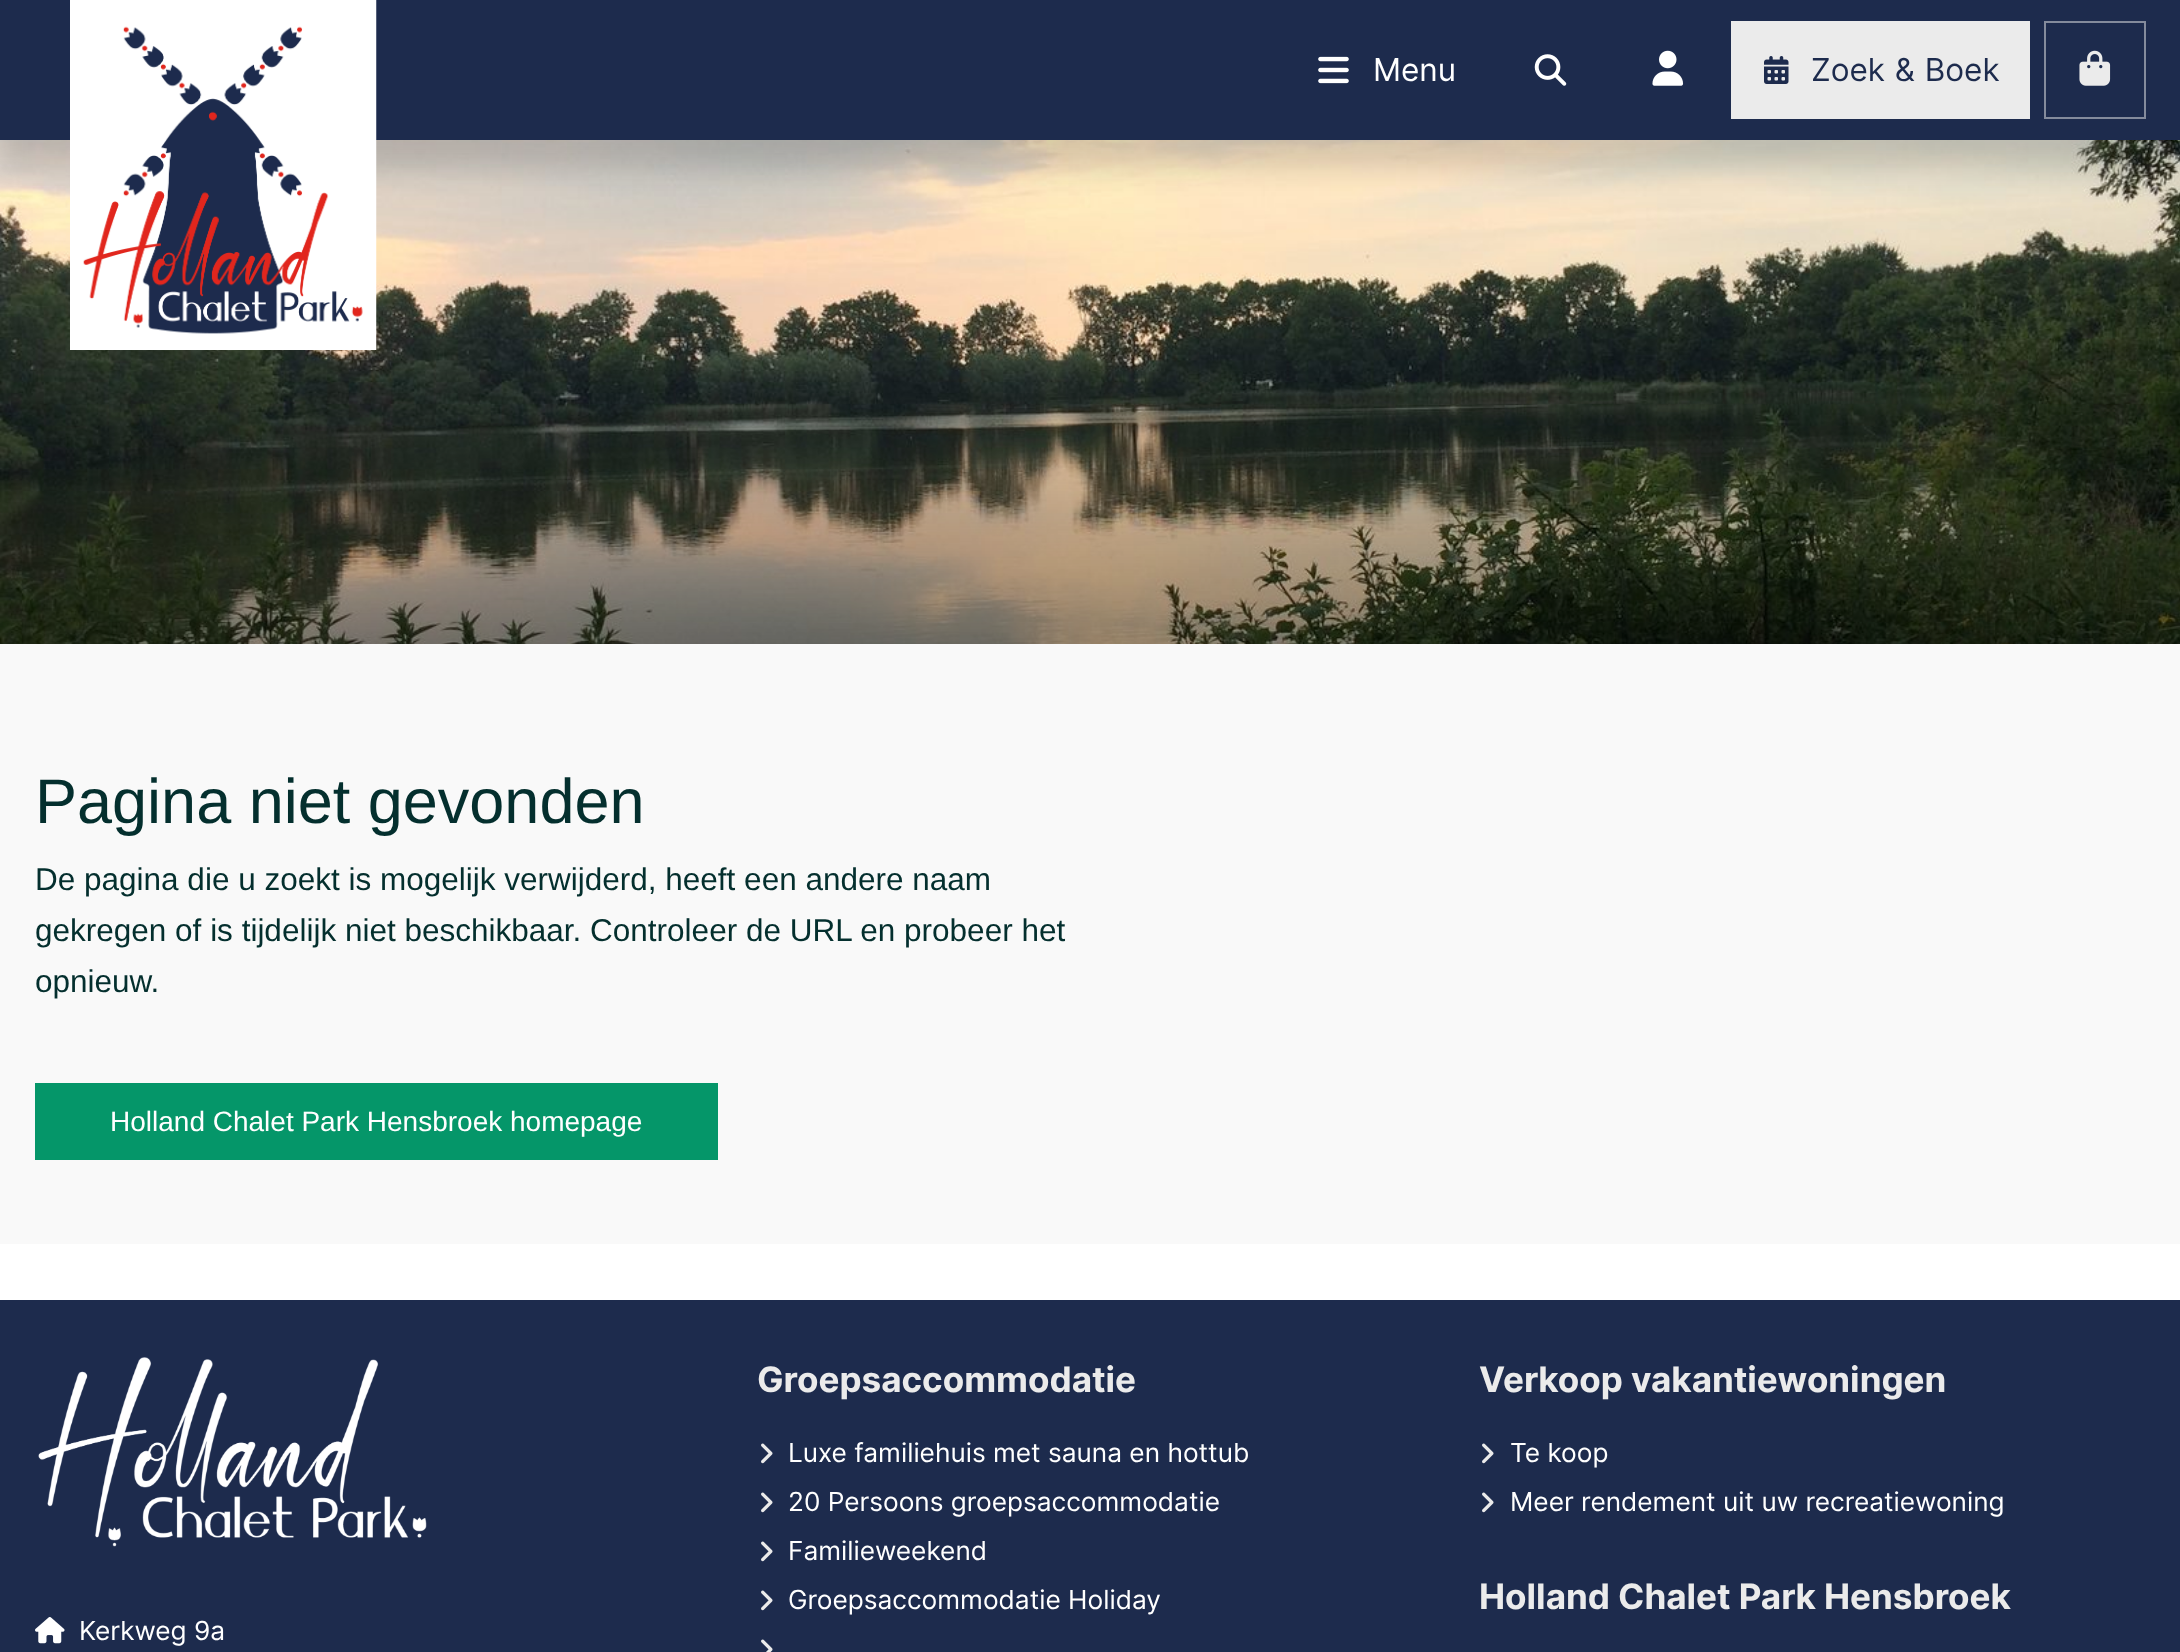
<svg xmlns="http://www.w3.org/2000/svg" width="2180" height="1652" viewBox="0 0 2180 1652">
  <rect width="100%" height="100%" fill="rgb(255,255,255)"/>
  <image x="0" y="140" width="2180" height="504" href="pic7.png"/>
  <rect x="0" y="28" width="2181" height="140" fill="rgba(0,0,0,0.15)" filter="blur(14px)"/>
  <rect x="0" y="0" width="2180" height="140" fill="rgb(29,43,77)"/>
  <image x="70" y="0" width="307" height="350" href="pic1.png"/>
  <image x="1318" y="56" width="31" height="28" href="pic2.png"/>
  <text x="1373" y="81" font-family="Inter" font-size="31.5" fill="rgb(255,255,255)">Menu</text>
  <image x="1534" y="54" width="33" height="32" href="pic3.png"/>
  <image x="1652" y="50" width="32" height="36" href="pic4.png"/>
  <rect x="1731" y="21" width="299" height="98" fill="rgb(235,235,235)"/>
  <image x="1764" y="56" width="25" height="28" href="pic5.png"/>
  <text x="1811" y="81" word-spacing="1" font-family="Inter" font-size="31.5" fill="rgb(29,43,77)">Zoek &amp; Boek</text>
  <rect x="2045" y="22" width="100" height="96" fill="none" stroke="rgb(132,139,156)" stroke-width="2"/>
  <image x="2079" y="50" width="32" height="36" href="pic6.png"/>
  <rect x="0" y="644" width="2180" height="600" fill="rgb(249,249,249)"/>
  <text x="35" y="823" font-family="Liberation Sans" font-size="63" fill="rgb(4,47,46)">Pagina niet gevonden</text>
  <g font-family="Liberation Sans" font-size="31.5" fill="rgb(4,47,46)">
    <text>
      <tspan x="35" y="890">De pagina die u zoekt is mogelijk verwijderd, heeft een andere naam</tspan>
      <tspan x="35" y="941">gekregen of is tijdelijk niet beschikbaar. Controleer de URL en probeer het</tspan>
      <tspan x="35" y="992">opnieuw.</tspan>
    </text>
  </g>
  <rect x="35" y="1083" width="683" height="77" fill="rgb(5,150,105)"/>
  <text x="110" y="1131" font-family="Liberation Sans" font-size="28" fill="rgb(255,255,255)">Holland Chalet Park Hensbroek homepage</text>
  <rect x="0" y="1300" width="2180" height="352" fill="rgb(29,43,77)"/>
  <text x="757" y="1392" font-family="Inter" font-size="35" font-weight="bold" fill="rgb(235,235,235)">Groepsaccommodatie</text>
  <image x="761" y="1443" width="12" height="21" href="pic8.png"/>
  <text x="788" y="1462" font-family="Inter" font-size="26.25" fill="rgb(255,255,255)">Luxe familiehuis met sauna en hottub</text>
  <image x="761" y="1492" width="12" height="21" href="pic8.png"/>
  <text x="788" y="1511" font-family="Inter" font-size="26.25" fill="rgb(255,255,255)">20 Persoons groepsaccommodatie</text>
  <image x="761" y="1541" width="12" height="21" href="pic8.png"/>
  <text x="788" y="1560" font-family="Inter" font-size="26.25" fill="rgb(255,255,255)">Familieweekend</text>
  <image x="761" y="1590" width="12" height="21" href="pic8.png"/>
  <text x="788" y="1609" font-family="Inter" font-size="26.25" fill="rgb(255,255,255)">Groepsaccommodatie Holiday</text>
  <image x="761" y="1639" width="12" height="13" href="pic9.png"/>
  <text x="1479" y="1392" font-family="Inter" font-size="35" font-weight="bold" fill="rgb(235,235,235)">Verkoop vakantiewoningen</text>
  <image x="1482" y="1443" width="12" height="21" href="pic8.png"/>
  <text x="1510" y="1462" font-family="Inter" font-size="26.25" fill="rgb(255,255,255)">Te koop</text>
  <image x="1482" y="1492" width="12" height="21" href="pic8.png"/>
  <text x="1510" y="1511" font-family="Inter" font-size="26.25" fill="rgb(255,255,255)">Meer rendement uit uw recreatiewoning</text>
  <text x="1479" y="1609" font-family="Inter" font-size="35" font-weight="bold" fill="rgb(235,235,235)">Holland Chalet Park Hensbroek</text>
  <image x="38" y="1357" width="389" height="190" href="pic10.png"/>
  <image x="35" y="1617" width="30" height="27" href="pic11.png"/>
  <text x="79" y="1640" font-family="Inter" font-size="26.25" fill="rgb(255,255,255)">Kerkweg 9a</text>
</svg>
